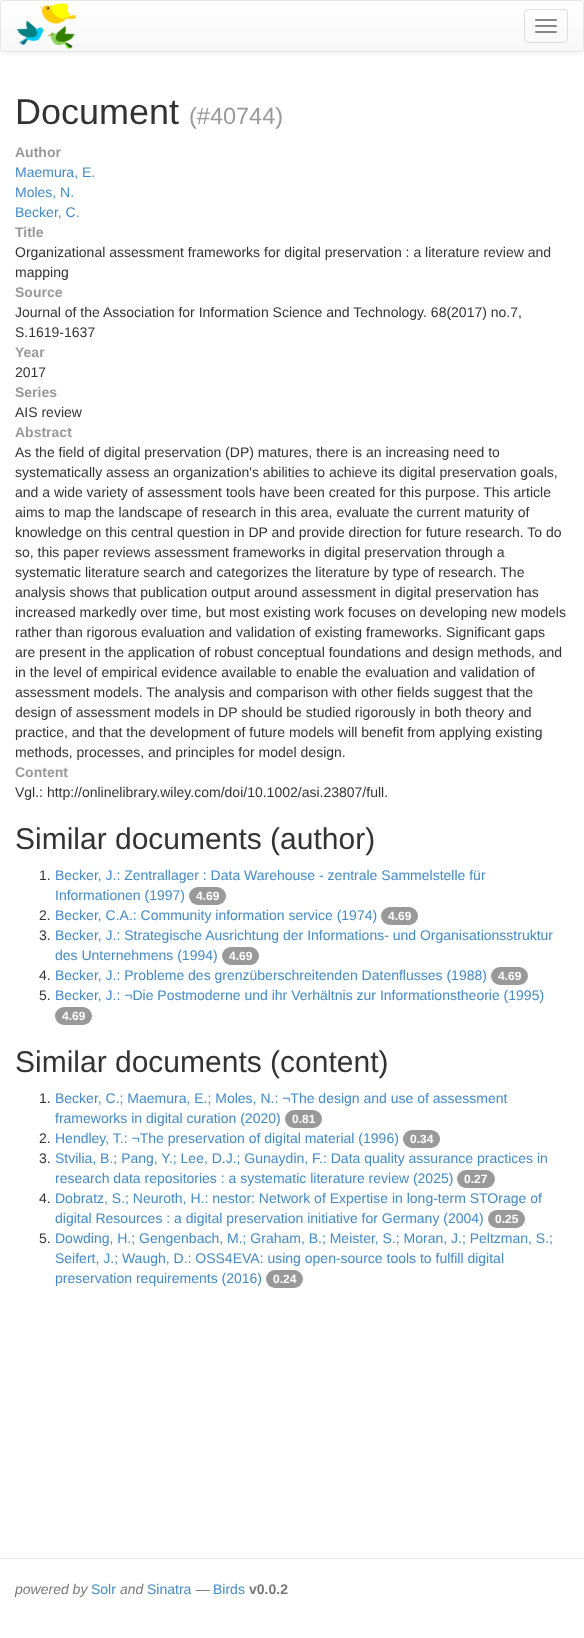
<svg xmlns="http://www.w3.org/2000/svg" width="584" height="1638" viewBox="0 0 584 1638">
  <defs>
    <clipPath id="clip1"><rect x="0" y="0" width="584" height="52" rx="4"/></clipPath>
    <linearGradient id="g1" gradientUnits="userSpaceOnUse" x1="292" y1="1" x2="292" y2="51"><stop offset="0" stop-color="rgb(255,255,255)"/><stop offset="1" stop-color="rgb(248,248,248)"/></linearGradient>
  </defs>
  <rect width="100%" height="100%" fill="rgb(255,255,255)"/>
  <rect x="0" y="1" width="584" height="52" rx="4" fill="rgba(0,0,0,0.07)" filter="blur(2.5px)"/>
  <g clip-path="url(#clip1)">
    <rect x="0" y="1" width="584" height="50" fill="url(#g1)"/>
  </g>
  <rect x="0.5" y="0.5" width="583" height="51" rx="3.5" fill="none" stroke="rgb(231,231,231)"/>
  <image x="16" y="3" width="60" height="46" href="pic1.png"/>
  <rect x="524.5" y="9.5" width="43" height="33" rx="3.5" fill="none" stroke="rgb(221,221,221)"/>
  <rect x="535" y="19" width="22" height="2" rx="1" fill="rgb(136,136,136)"/>
  <rect x="535" y="25" width="22" height="2" rx="1" fill="rgb(136,136,136)"/>
  <rect x="535" y="31" width="22" height="2" rx="1" fill="rgb(136,136,136)"/>
  <text x="15" y="124" font-family="Liberation Sans" font-size="36" fill="rgb(51,51,51)">Document</text>
  <text x="189" y="124" font-family="Liberation Sans" font-size="23.5" fill="rgb(153,153,153)">(#40744)</text>
  <text x="15" y="157" font-family="Liberation Sans" font-size="14" font-weight="bold" fill="rgb(153,153,153)">Author</text>
  <g font-family="Liberation Sans" font-size="14" fill="rgb(66,139,202)">
    <text>
      <tspan x="15" y="177">Maemura, E.</tspan>
      <tspan x="15" y="197">Moles, N.</tspan>
      <tspan x="15" y="217">Becker, C.</tspan>
    </text>
  </g>
  <text x="15" y="237" font-family="Liberation Sans" font-size="14" font-weight="bold" fill="rgb(153,153,153)">Title</text>
  <g font-family="Liberation Sans" font-size="14" fill="rgb(51,51,51)">
    <text>
      <tspan x="15" y="257">Organizational assessment frameworks for digital preservation : a literature review and</tspan>
      <tspan x="15" y="277">mapping</tspan>
    </text>
  </g>
  <text x="15" y="297" font-family="Liberation Sans" font-size="14" font-weight="bold" fill="rgb(153,153,153)">Source</text>
  <g font-family="Liberation Sans" font-size="14" fill="rgb(51,51,51)">
    <text>
      <tspan x="15" y="317">Journal of the Association for Information Science and Technology. 68(2017) no.7,</tspan>
      <tspan x="15" y="337">S.1619-1637</tspan>
    </text>
  </g>
  <text x="15" y="357" font-family="Liberation Sans" font-size="14" font-weight="bold" fill="rgb(153,153,153)">Year</text>
  <text x="15" y="377" font-family="Liberation Sans" font-size="14" fill="rgb(51,51,51)">2017</text>
  <text x="15" y="397" font-family="Liberation Sans" font-size="14" font-weight="bold" fill="rgb(153,153,153)">Series</text>
  <text x="15" y="417" font-family="Liberation Sans" font-size="14" fill="rgb(51,51,51)">AIS review</text>
  <text x="15" y="437" font-family="Liberation Sans" font-size="14" font-weight="bold" fill="rgb(153,153,153)">Abstract</text>
  <g font-family="Liberation Sans" font-size="14" fill="rgb(51,51,51)">
    <text>
      <tspan x="15" y="457">As the field of digital preservation (DP) matures, there is an increasing need to</tspan>
      <tspan x="15" y="477">systematically assess an organization's abilities to achieve its digital preservation goals,</tspan>
      <tspan x="15" y="497">and a wide variety of assessment tools have been created for this purpose. This article</tspan>
      <tspan x="15" y="517">aims to map the landscape of research in this area, evaluate the current maturity of</tspan>
      <tspan x="15" y="537">knowledge on this central question in DP and provide direction for future research. To do</tspan>
      <tspan x="15" y="557">so, this paper reviews assessment frameworks in digital preservation through a</tspan>
      <tspan x="15" y="577">systematic literature search and categorizes the literature by type of research. The</tspan>
      <tspan x="15" y="597">analysis shows that publication output around assessment in digital preservation has</tspan>
      <tspan x="15" y="617">increased markedly over time, but most existing work focuses on developing new models</tspan>
      <tspan x="15" y="637">rather than rigorous evaluation and validation of existing frameworks. Significant gaps</tspan>
      <tspan x="15" y="657">are present in the application of robust conceptual foundations and design methods, and</tspan>
      <tspan x="15" y="677">in the level of empirical evidence available to enable the evaluation and validation of</tspan>
      <tspan x="15" y="697">assessment models. The analysis and comparison with other fields suggest that the</tspan>
      <tspan x="15" y="717">design of assessment models in DP should be studied rigorously in both theory and</tspan>
      <tspan x="15" y="737">practice, and that the development of future models will benefit from applying existing</tspan>
      <tspan x="15" y="757">methods, processes, and principles for model design.</tspan>
    </text>
  </g>
  <text x="15" y="777" font-family="Liberation Sans" font-size="14" font-weight="bold" fill="rgb(153,153,153)">Content</text>
  <text x="15" y="797" font-family="Liberation Sans" font-size="14" fill="rgb(51,51,51)">Vgl.: http://onlinelibrary.wiley.com/doi/10.1002/asi.23807/full.</text>
  <text x="15" y="849" font-family="Liberation Sans" font-size="30" fill="rgb(51,51,51)">Similar documents (author)</text>
  <text x="39" y="880" font-family="Liberation Sans" font-size="14" fill="rgb(51,51,51)">1.</text>
  <g font-family="Liberation Sans" font-size="14" fill="rgb(66,139,202)">
    <text>
      <tspan x="55" y="880">Becker, J.: Zentrallager : Data Warehouse - zentrale Sammelstelle für</tspan>
      <tspan x="55" y="900">Informationen (1997)</tspan>
    </text>
  </g>
  <rect x="189" y="887" width="37" height="18" rx="9" fill="rgb(153,153,153)"/>
  <text x="196" y="900" font-family="Liberation Sans" font-size="12" font-weight="bold" fill="rgb(255,255,255)">4.69</text>
  <text x="39" y="920" font-family="Liberation Sans" font-size="14" fill="rgb(51,51,51)">2.</text>
  <text x="55" y="920" font-family="Liberation Sans" font-size="14" fill="rgb(66,139,202)">Becker, C.A.: Community information service (1974)</text>
  <rect x="381" y="907" width="37" height="18" rx="9" fill="rgb(153,153,153)"/>
  <text x="388" y="920" font-family="Liberation Sans" font-size="12" font-weight="bold" fill="rgb(255,255,255)">4.69</text>
  <text x="39" y="940" font-family="Liberation Sans" font-size="14" fill="rgb(51,51,51)">3.</text>
  <g font-family="Liberation Sans" font-size="14" fill="rgb(66,139,202)">
    <text>
      <tspan x="55" y="940">Becker, J.: Strategische Ausrichtung der Informations- und Organisationsstruktur</tspan>
      <tspan x="55" y="960">des Unternehmens (1994)</tspan>
    </text>
  </g>
  <rect x="222" y="947" width="37" height="18" rx="9" fill="rgb(153,153,153)"/>
  <text x="229" y="960" font-family="Liberation Sans" font-size="12" font-weight="bold" fill="rgb(255,255,255)">4.69</text>
  <text x="39" y="980" font-family="Liberation Sans" font-size="14" fill="rgb(51,51,51)">4.</text>
  <text x="55" y="980" font-family="Liberation Sans" font-size="14" fill="rgb(66,139,202)">Becker, J.: Probleme des grenzüberschreitenden Datenflusses (1988)</text>
  <rect x="491" y="967" width="37" height="18" rx="9" fill="rgb(153,153,153)"/>
  <text x="498" y="980" font-family="Liberation Sans" font-size="12" font-weight="bold" fill="rgb(255,255,255)">4.69</text>
  <text x="39" y="1000" font-family="Liberation Sans" font-size="14" fill="rgb(51,51,51)">5.</text>
  <text x="55" y="1000" font-family="Liberation Sans" font-size="14" fill="rgb(66,139,202)">Becker, J.: ¬Die Postmoderne und ihr Verhältnis zur Informationstheorie (1995)</text>
  <rect x="55" y="1007" width="37" height="18" rx="9" fill="rgb(153,153,153)"/>
  <text x="62" y="1020" font-family="Liberation Sans" font-size="12" font-weight="bold" fill="rgb(255,255,255)">4.69</text>
  <text x="15" y="1072" font-family="Liberation Sans" font-size="30" fill="rgb(51,51,51)">Similar documents (content)</text>
  <text x="39" y="1103" font-family="Liberation Sans" font-size="14" fill="rgb(51,51,51)">1.</text>
  <g font-family="Liberation Sans" font-size="14" fill="rgb(66,139,202)">
    <text>
      <tspan x="55" y="1103">Becker, C.; Maemura, E.; Moles, N.: ¬The design and use of assessment</tspan>
      <tspan x="55" y="1123">frameworks in digital curation (2020)</tspan>
    </text>
  </g>
  <rect x="285" y="1110" width="37" height="18" rx="9" fill="rgb(153,153,153)"/>
  <text x="292" y="1123" font-family="Liberation Sans" font-size="12" font-weight="bold" fill="rgb(255,255,255)">0.81</text>
  <text x="39" y="1143" font-family="Liberation Sans" font-size="14" fill="rgb(51,51,51)">2.</text>
  <text x="55" y="1143" font-family="Liberation Sans" font-size="14" fill="rgb(66,139,202)">Hendley, T.: ¬The preservation of digital material (1996)</text>
  <rect x="403" y="1130" width="37" height="18" rx="9" fill="rgb(153,153,153)"/>
  <text x="410" y="1143" font-family="Liberation Sans" font-size="12" font-weight="bold" fill="rgb(255,255,255)">0.34</text>
  <text x="39" y="1163" font-family="Liberation Sans" font-size="14" fill="rgb(51,51,51)">3.</text>
  <g font-family="Liberation Sans" font-size="14" fill="rgb(66,139,202)">
    <text>
      <tspan x="55" y="1163">Stvilia, B.; Pang, Y.; Lee, D.J.; Gunaydin, F.: Data quality assurance practices in</tspan>
      <tspan x="55" y="1183">research data repositories : a systematic literature review (2025)</tspan>
    </text>
  </g>
  <rect x="457" y="1170" width="38" height="18" rx="9" fill="rgb(153,153,153)"/>
  <text x="464" y="1183" font-family="Liberation Sans" font-size="12" font-weight="bold" fill="rgb(255,255,255)">0.27</text>
  <text x="39" y="1203" font-family="Liberation Sans" font-size="14" fill="rgb(51,51,51)">4.</text>
  <g font-family="Liberation Sans" font-size="14" fill="rgb(66,139,202)">
    <text>
      <tspan x="55" y="1203">Dobratz, S.; Neuroth, H.: nestor: Network of Expertise in long-term STOrage of</tspan>
      <tspan x="55" y="1223">digital Resources : a digital preservation initiative for Germany (2004)</tspan>
    </text>
  </g>
  <rect x="488" y="1210" width="37" height="18" rx="9" fill="rgb(153,153,153)"/>
  <text x="495" y="1223" font-family="Liberation Sans" font-size="12" font-weight="bold" fill="rgb(255,255,255)">0.25</text>
  <text x="39" y="1243" font-family="Liberation Sans" font-size="14" fill="rgb(51,51,51)">5.</text>
  <g font-family="Liberation Sans" font-size="14" fill="rgb(66,139,202)">
    <text>
      <tspan x="55" y="1243">Dowding, H.; Gengenbach, M.; Graham, B.; Meister, S.; Moran, J.; Peltzman, S.;</tspan>
      <tspan x="55" y="1263">Seifert, J.; Waugh, D.: OSS4EVA: using open-source tools to fulfill digital</tspan>
      <tspan x="55" y="1283">preservation requirements (2016)</tspan>
    </text>
  </g>
  <rect x="266" y="1270" width="37" height="18" rx="9" fill="rgb(153,153,153)"/>
  <text x="273" y="1283" font-family="Liberation Sans" font-size="12" font-weight="bold" fill="rgb(255,255,255)">0.24</text>
  <rect x="0" y="1558" width="584" height="1" fill="rgb(229,229,229)"/>
  <text x="15" y="1594" font-family="Liberation Sans" font-size="14" font-style="italic" fill="rgb(119,119,119)">powered by</text>
  <text x="91" y="1594" font-family="Liberation Sans" font-size="14" fill="rgb(66,139,202)">Solr</text>
  <text x="120" y="1594" font-family="Liberation Sans" font-size="14" font-style="italic" fill="rgb(119,119,119)">and</text>
  <text x="147" y="1594" font-family="Liberation Sans" font-size="14" fill="rgb(66,139,202)">Sinatra</text>
  <text x="196" y="1594" font-family="Liberation Sans" font-size="14" fill="rgb(119,119,119)">—</text>
  <text x="213" y="1594" font-family="Liberation Sans" font-size="14" fill="rgb(66,139,202)">Birds</text>
  <text x="249" y="1594" font-family="Liberation Sans" font-size="14" font-weight="bold" fill="rgb(119,119,119)">v0.0.2</text>
</svg>
